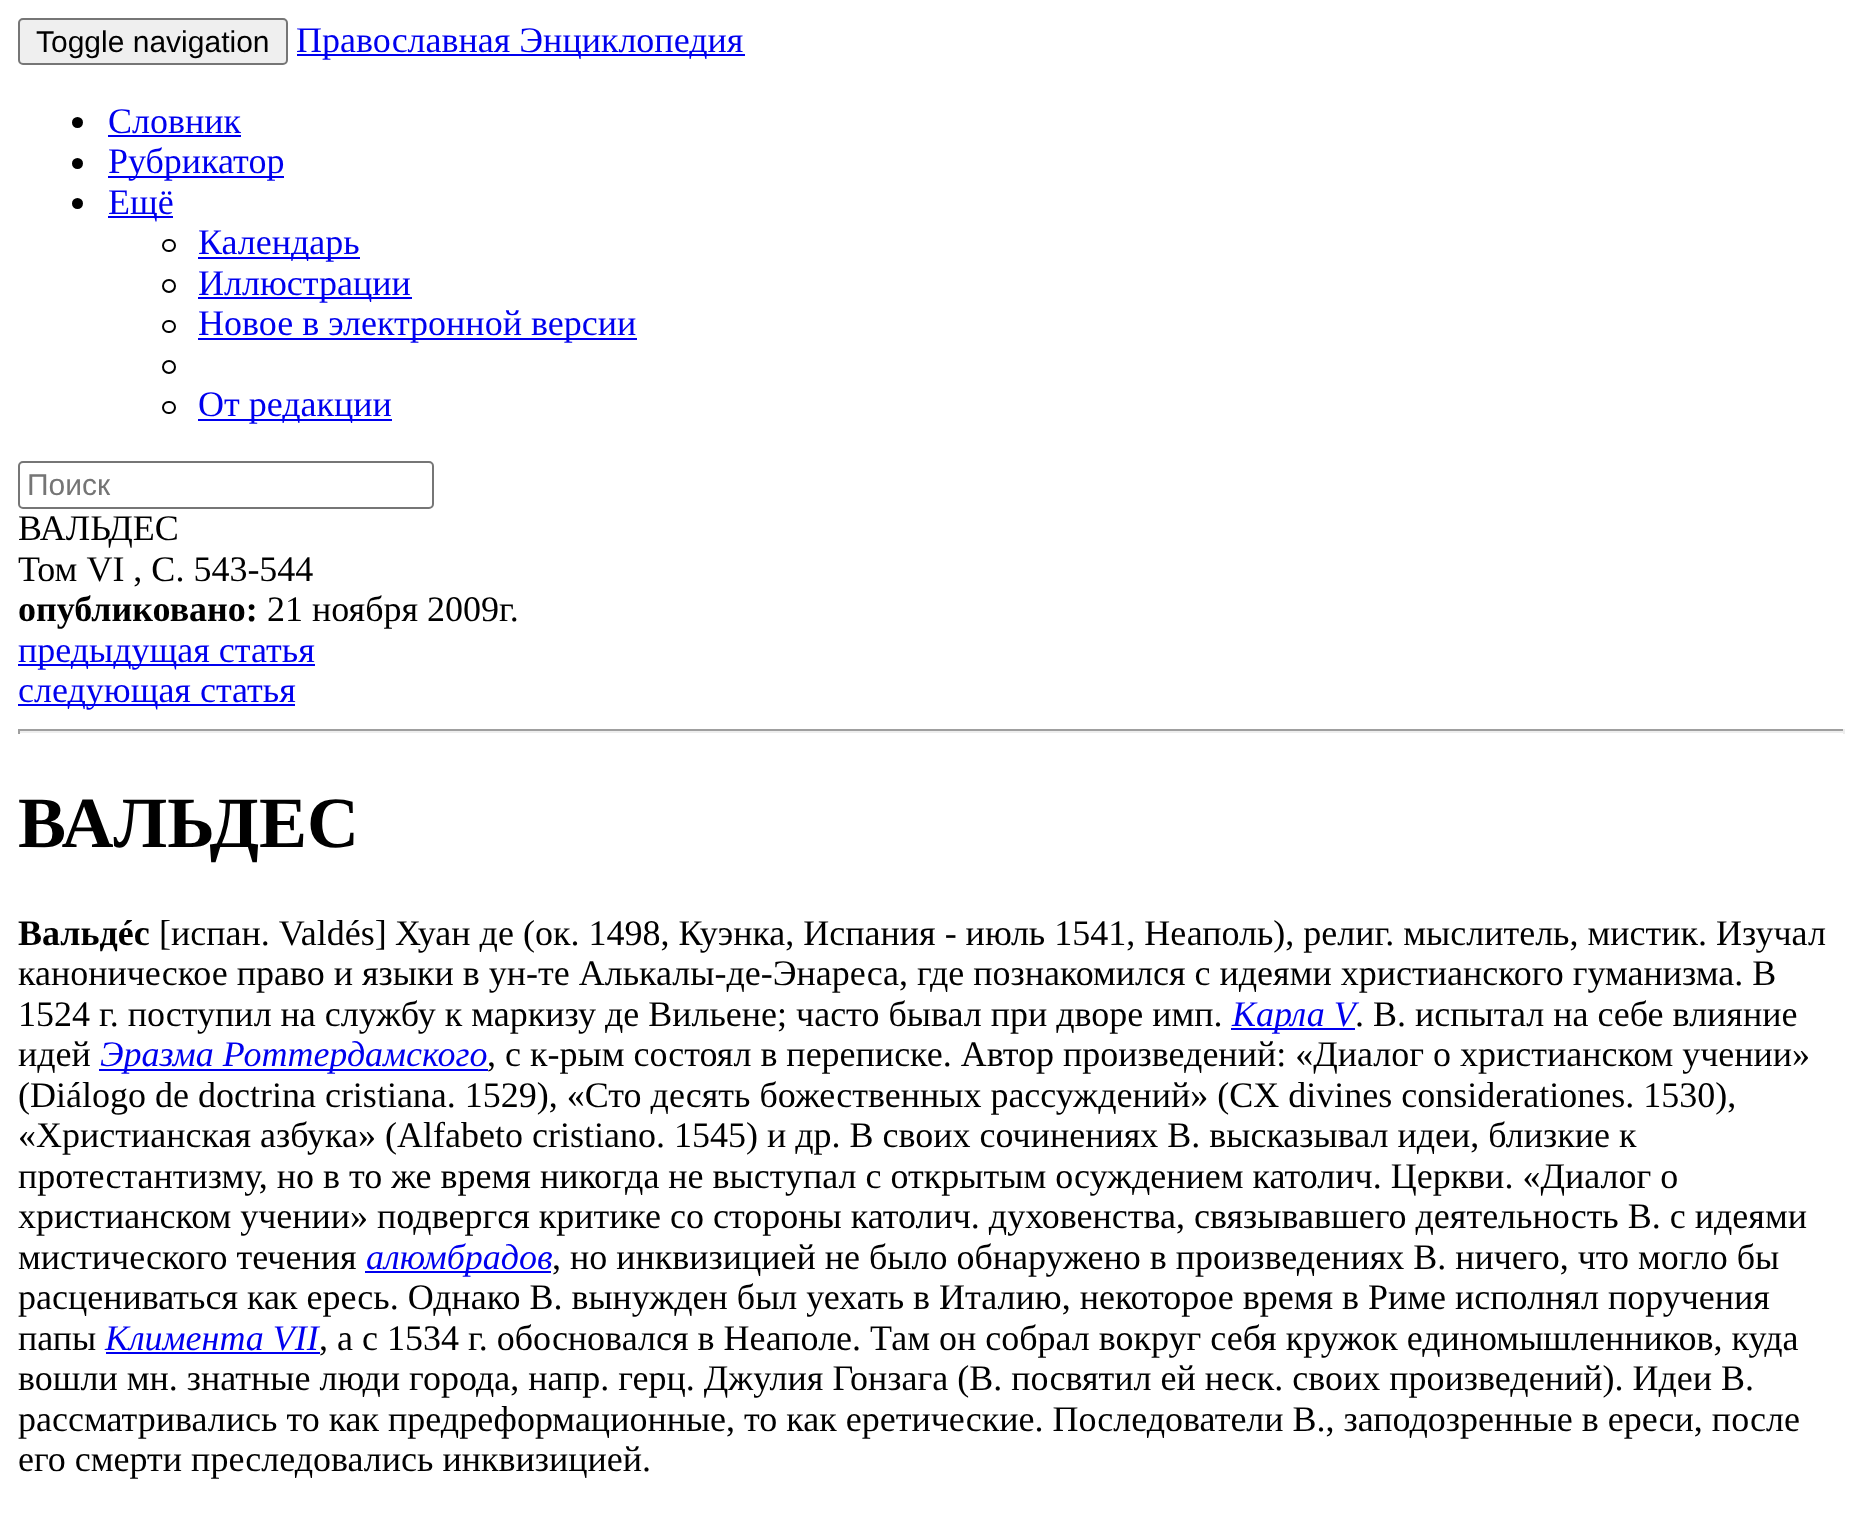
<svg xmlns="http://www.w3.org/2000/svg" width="1861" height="1535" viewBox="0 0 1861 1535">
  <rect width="100%" height="100%" fill="rgb(255,255,255)"/>
  <rect x="19" y="19" width="268" height="45" rx="4" fill="rgb(239,239,239)" stroke="rgb(118,118,118)" stroke-width="2"/>
  <text x="36" y="52" font-family="Liberation Sans" font-size="30" fill="rgb(0,0,0)">Toggle navigation</text>
  <rect x="297" y="54" width="448" height="2" fill="rgb(0,0,238)"/>
  <text x="296" y="52" font-family="Liberation Serif" font-size="36" fill="rgb(0,0,238)">Православная Энциклопедия</text>
  <circle cx="77.5" cy="122.5" r="5.5" fill="rgb(0,0,0)"/>
  <text x="108" y="133" font-family="Liberation Serif" font-size="36" fill="rgb(0,0,238)">Словник</text>
  <rect x="108" y="135" width="133" height="2" fill="rgb(0,0,238)"/>
  <circle cx="77.5" cy="163.5" r="5.5" fill="rgb(0,0,0)"/>
  <rect x="108" y="176" width="176" height="2" fill="rgb(0,0,238)"/>
  <text x="108" y="173" font-family="Liberation Serif" font-size="36" fill="rgb(0,0,238)">Рубрикатор</text>
  <circle cx="77.5" cy="203.5" r="5.5" fill="rgb(0,0,0)"/>
  <rect x="108" y="216" width="65" height="2" fill="rgb(0,0,238)"/>
  <text x="108" y="214" font-family="Liberation Serif" font-size="36" fill="rgb(0,0,238)">Ещё</text>
  <rect x="163" y="240" width="12" height="11" rx="5.5" fill="none" stroke="rgb(0,0,0)" stroke-width="2"/>
  <rect x="198" y="257" width="162" height="2" fill="rgb(0,0,238)"/>
  <text x="198" y="254" font-family="Liberation Serif" font-size="36" fill="rgb(0,0,238)">Календарь</text>
  <circle cx="169" cy="286" r="6" fill="none" stroke="rgb(0,0,0)" stroke-width="2"/>
  <rect x="198" y="297" width="214" height="2" fill="rgb(0,0,238)"/>
  <text x="198" y="295" font-family="Liberation Serif" font-size="36" fill="rgb(0,0,238)">Иллюстрации</text>
  <rect x="163" y="321" width="12" height="11" rx="5.5" fill="none" stroke="rgb(0,0,0)" stroke-width="2"/>
  <rect x="198" y="338" width="439" height="2" fill="rgb(0,0,238)"/>
  <text x="198" y="335" font-family="Liberation Serif" font-size="36" fill="rgb(0,0,238)">Новое в электронной версии</text>
  <circle cx="169" cy="367" r="6" fill="none" stroke="rgb(0,0,0)" stroke-width="2"/>
  <rect x="163" y="402" width="12" height="11" rx="5.5" fill="none" stroke="rgb(0,0,0)" stroke-width="2"/>
  <rect x="198" y="419" width="194" height="2" fill="rgb(0,0,238)"/>
  <text x="198" y="416" font-family="Liberation Serif" font-size="36" fill="rgb(0,0,238)">От редакции</text>
  <rect x="19" y="462" width="414" height="46" rx="4" fill="none" stroke="rgb(118,118,118)" stroke-width="2"/>
  <text x="27" y="495" font-family="Liberation Sans" font-size="30" fill="rgb(117,117,117)">Поиск</text>
  <g font-family="Liberation Serif" font-size="36" fill="rgb(0,0,0)">
    <text>
      <tspan x="18" y="540">ВАЛЬДЕС</tspan>
      <tspan x="18" y="581">Том VI , С. 543-544</tspan>
    </text>
  </g>
  <text x="18" y="621" font-family="Liberation Serif" font-size="36" font-weight="bold" fill="rgb(0,0,0)">опубликовано:</text>
  <text x="267" y="621" font-family="Liberation Serif" font-size="36" fill="rgb(0,0,0)">21 ноября 2009г.</text>
  <rect x="18" y="664" width="297" height="2" fill="rgb(0,0,238)"/>
  <text x="18" y="662" font-family="Liberation Serif" font-size="36" fill="rgb(0,0,238)">предыдущая статья</text>
  <rect x="18" y="704" width="277" height="2" fill="rgb(0,0,238)"/>
  <text x="18" y="702" font-family="Liberation Serif" font-size="36" fill="rgb(0,0,238)">следующая статья</text>
  <rect x="18" y="729" width="1827" height="2" fill="rgb(159,159,159)"/>
  <rect x="1843" y="729" width="2" height="5" fill="rgb(238,238,238)"/>
  <rect x="18" y="731" width="1827" height="2" fill="rgb(238,238,238)"/>
  <rect x="18" y="729" width="2" height="5" fill="rgb(159,159,159)"/>
  <text x="18" y="847" font-family="Liberation Serif" font-size="72" font-weight="bold" fill="rgb(0,0,0)">ВАЛЬДЕС</text>
  <text x="18" y="945" font-family="Liberation Serif" font-size="36" font-weight="bold" fill="rgb(0,0,0)">Вальдéс</text>
  <g font-family="Liberation Serif" font-size="36" fill="rgb(0,0,0)">
    <text x="159" y="945">[испан. Valdés]</text>
    <text x="395" y="945">Хуан де (ок. 1498, Куэнка, Испания - июль 1541, Неаполь), религ. мыслитель, мистик. Изучал</text>
    <text>
      <tspan x="18" y="985">каноническое право и языки в ун-те Алькалы-де-Энареса, где познакомился с идеями христианского гуманизма. В</tspan>
      <tspan x="18" y="1026">1524 г. поступил на службу к маркизу де Вильене; часто бывал при дворе имп.</tspan>
    </text>
  </g>
  <rect x="1231" y="1028" width="124" height="2" fill="rgb(0,0,238)"/>
  <text x="1232" y="1026" font-family="Liberation Serif" font-size="36" font-style="italic" fill="rgb(0,0,238)">Карла V</text>
  <g font-family="Liberation Serif" font-size="36" fill="rgb(0,0,0)">
    <text x="1355" y="1026">. В. испытал на себе влияние</text>
    <text x="18" y="1066">идей</text>
  </g>
  <rect x="99" y="1069" width="389" height="2" fill="rgb(0,0,238)"/>
  <text x="100" y="1066" font-family="Liberation Serif" font-size="36" font-style="italic" fill="rgb(0,0,238)">Эразма Роттердамского</text>
  <g font-family="Liberation Serif" font-size="36" fill="rgb(0,0,0)">
    <text x="487" y="1066">, с к-рым состоял в переписке. Автор произведений: «Диалог о христианском учении»</text>
    <text>
      <tspan x="18" y="1107">(Diálogo de doctrina cristiana. 1529), «Сто десять божественных рассуждений» (CX divines considerationes. 1530),</tspan>
      <tspan x="18" y="1147">«Христианская азбука» (Alfabeto cristiano. 1545) и др. В своих сочинениях В. высказывал идеи, близкие к</tspan>
      <tspan x="18" y="1188">протестантизму, но в то же время никогда не выступал с открытым осуждением католич. Церкви. «Диалог о</tspan>
      <tspan x="18" y="1228">христианском учении» подвергся критике со стороны католич. духовенства, связывавшего деятельность В. с идеями</tspan>
      <tspan x="18" y="1269">мистического течения</tspan>
    </text>
  </g>
  <rect x="365" y="1271" width="186" height="2" fill="rgb(0,0,238)"/>
  <text x="366" y="1269" font-family="Liberation Serif" font-size="36" font-style="italic" fill="rgb(0,0,238)">алюмбрадов</text>
  <g font-family="Liberation Serif" font-size="36" fill="rgb(0,0,0)">
    <text x="552" y="1269">, но инквизицией не было обнаружено в произведениях В. ничего, что могло бы</text>
    <text>
      <tspan x="18" y="1309">расцениваться как ересь. Однако В. вынужден был уехать в Италию, некоторое время в Риме исполнял поручения</tspan>
      <tspan x="18" y="1350">папы</tspan>
    </text>
  </g>
  <text x="105" y="1350" font-family="Liberation Serif" font-size="36" font-style="italic" fill="rgb(0,0,238)">Климента VII</text>
  <rect x="106" y="1352" width="214" height="2" fill="rgb(0,0,238)"/>
  <g font-family="Liberation Serif" font-size="36" fill="rgb(0,0,0)">
    <text x="319" y="1350">, а с 1534 г. обосновался в Неаполе. Там он собрал вокруг себя кружок единомышленников, куда</text>
    <text>
      <tspan x="18" y="1390">вошли мн. знатные люди города, напр. герц. Джулия Гонзага (В. посвятил ей неск. своих произведений). Идеи В.</tspan>
      <tspan x="18" y="1431">рассматривались то как предреформационные, то как еретические. Последователи В., заподозренные в ереси, после</tspan>
      <tspan x="18" y="1471">его смерти преследовались инквизицией.</tspan>
    </text>
  </g>
</svg>
